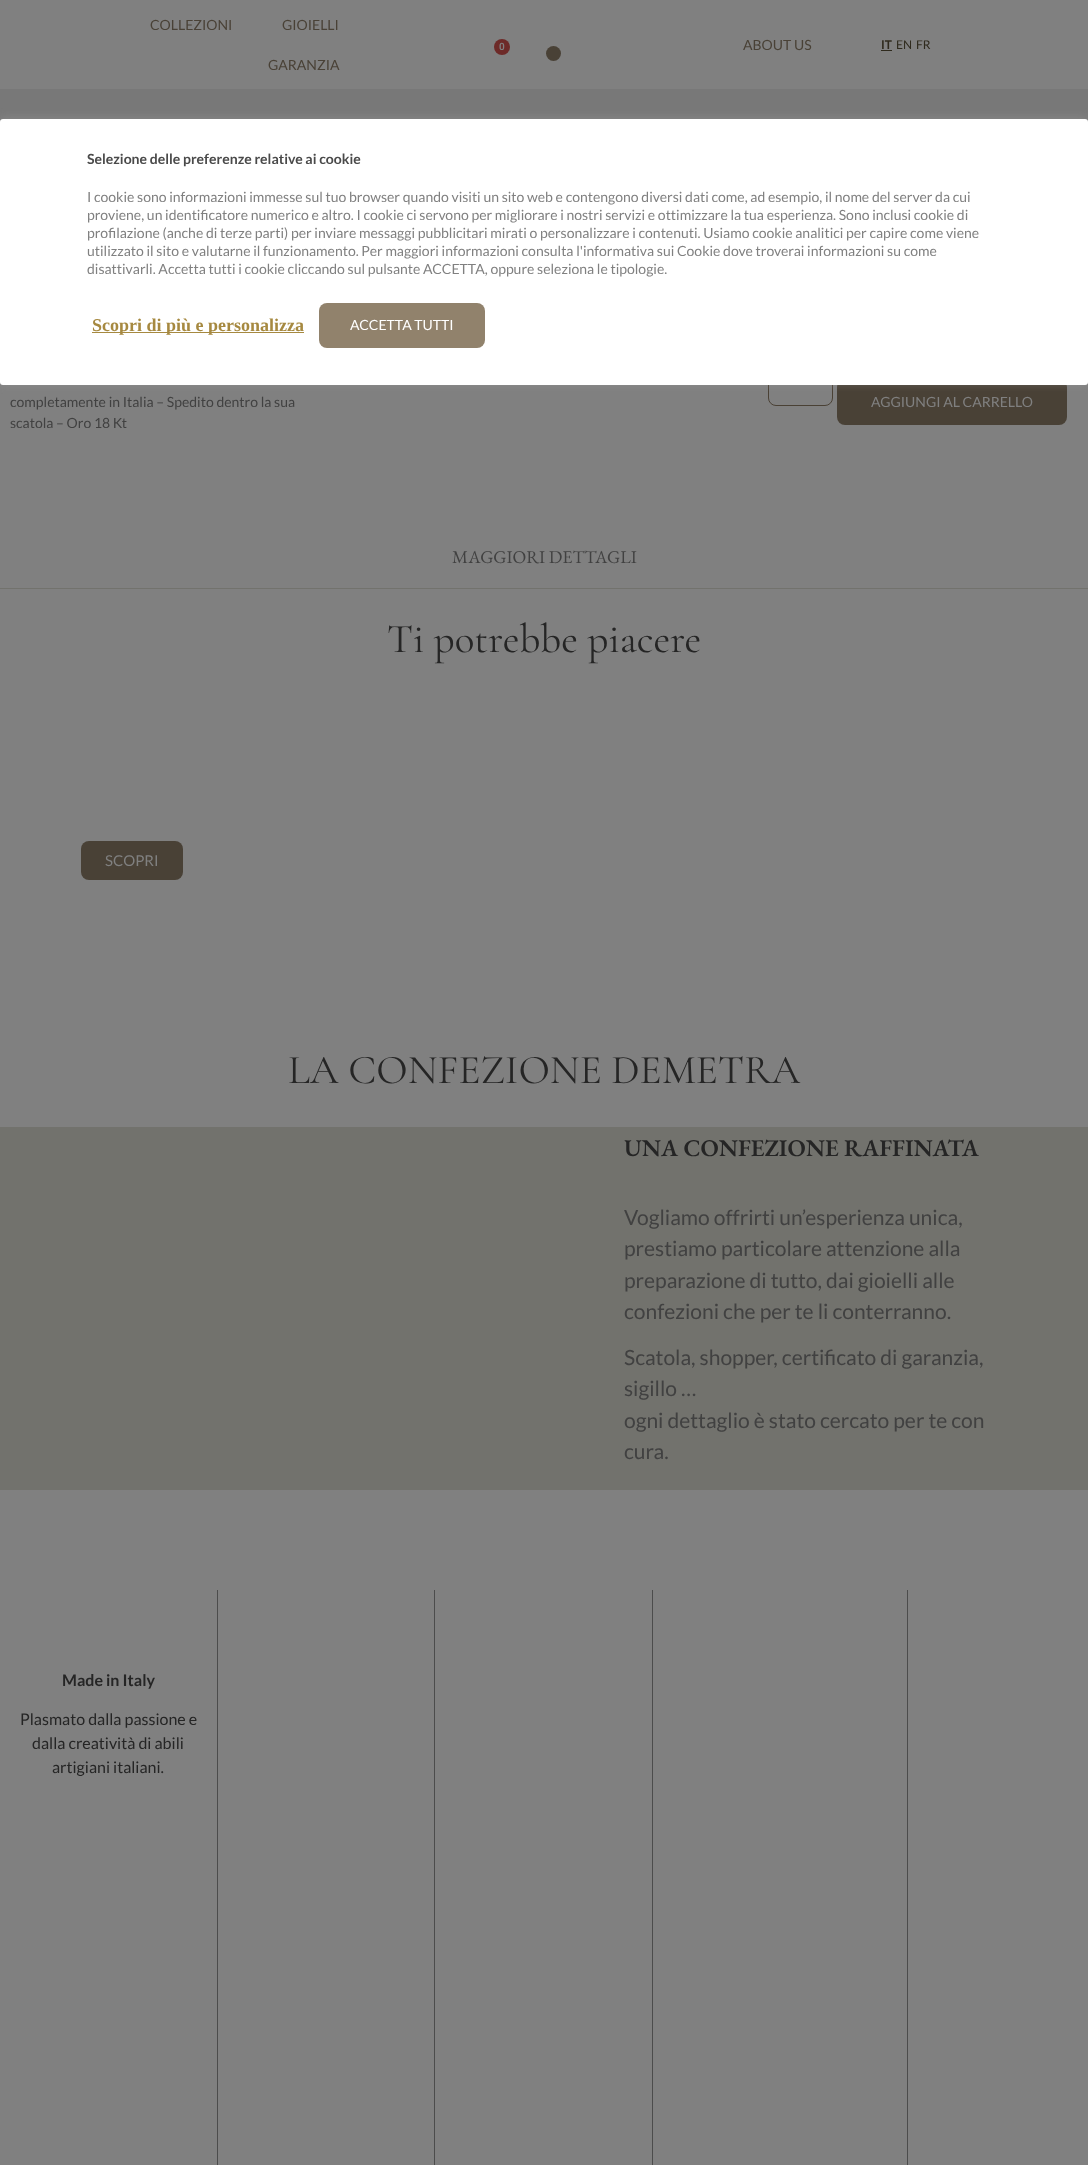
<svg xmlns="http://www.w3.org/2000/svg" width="1088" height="2165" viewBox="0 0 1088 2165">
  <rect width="100%" height="100%" fill="rgb(128,128,128)"/>
  <g font-family="Lato" font-size="14" fill="rgb(73,65,54)">
    <text x="150" y="30">COLLEZIONI</text>
    <text x="282" y="30">GIOIELLI</text>
    <text x="268" y="70">GARANZIA</text>
  </g>
  <circle cx="502" cy="47" r="8" fill="rgb(109,42,40)"/>
  <text x="499" y="50" font-family="Roboto" font-size="10" font-weight="600" fill="rgb(128,128,128)">0</text>
  <circle cx="553.5" cy="53.5" r="7.5" fill="rgb(73,65,54)"/>
  <text x="743" y="50" font-family="Lato" font-size="14" fill="rgb(73,65,54)">ABOUT US</text>
  <text x="881" y="49" font-family="Lato" font-size="12" font-weight="bold" fill="rgb(47,42,29)">IT</text>
  <rect x="881" y="50" width="11" height="1" fill="rgb(47,42,29)"/>
  <g font-family="Lato" font-size="12" fill="rgb(47,42,29)">
    <text x="896" y="49">EN</text>
    <text x="916" y="49">FR</text>
  </g>
  <rect x="0" y="89" width="1088" height="33" fill="rgb(120,120,120)"/>
  <rect x="768.5" y="366.5" width="64" height="39" rx="7.5" fill="none" stroke="rgb(74,65,53)"/>
  <rect x="837" y="379" width="230" height="46" rx="8" fill="rgb(73,65,54)"/>
  <rect x="0" y="118" width="1088" height="266" rx="3" fill="rgba(172,171,171,0.3)" filter="blur(5px)"/>
  <rect x="0" y="119" width="1088" height="266" rx="3" fill="rgb(255,255,255)"/>
  <text x="87" y="164" font-family="Lato" font-size="14" font-weight="bold" fill="rgb(74,74,74)">Selezione delle preferenze relative ai cookie</text>
  <g font-family="Lato" font-size="14" fill="rgb(128,128,128)">
    <text>
      <tspan x="87" y="202">I cookie sono informazioni immesse sul tuo browser quando visiti un sito web e contengono diversi dati come, ad esempio, il nome del server da cui</tspan>
      <tspan x="87" y="220">proviene, un identificatore numerico e altro. I cookie ci servono per migliorare i nostri servizi e ottimizzare la tua esperienza. Sono inclusi cookie di</tspan>
      <tspan x="87" y="238">profilazione (anche di terze parti) per inviare messaggi pubblicitari mirati o personalizzare i contenuti. Usiamo cookie analitici per capire come viene</tspan>
      <tspan x="87" y="256">utilizzato il sito e valutarne il funzionamento. Per maggiori informazioni consulta l'informativa sui Cookie dove troverai informazioni su come</tspan>
      <tspan x="87" y="274">disattivarli. Accetta tutti i cookie cliccando sul pulsante ACCETTA, oppure seleziona le tipologie.</tspan>
    </text>
  </g>
  <rect x="92" y="332" width="212" height="1" fill="rgb(166,137,64)"/>
  <text x="92" y="331" font-family="Liberation Serif" font-size="18" font-weight="bold" fill="rgb(166,137,64)">Scopri di più e personalizza</text>
  <rect x="319" y="303" width="166" height="45" rx="8" fill="rgb(145,130,108)"/>
  <text x="350" y="330" font-family="Lato" font-size="14" fill="rgb(255,255,255)">ACCETTA TUTTI</text>
  <g font-family="Lato" font-size="14" fill="rgb(65,65,65)">
    <text>
      <tspan x="10" y="407">completamente in Italia – Spedito dentro la sua</tspan>
      <tspan x="10" y="428">scatola – Oro 18 Kt</tspan>
    </text>
  </g>
  <text x="871" y="407" font-family="Lato" font-size="14" fill="rgb(128,128,128)">AGGIUNGI AL CARRELLO</text>
  <text x="452" y="563" font-family="EB Garamond" font-size="18" fill="rgb(65,65,65)">MAGGIORI DETTAGLI</text>
  <rect x="0" y="588" width="1088" height="1" fill="rgb(114,114,109)"/>
  <text x="387" y="652" font-family="Cormorant Garamond" font-size="41" fill="rgb(37,37,37)">Ti potrebbe piacere</text>
  <rect x="81" y="841" width="102" height="39" rx="8" fill="rgb(73,65,54)"/>
  <text x="105" y="866" font-family="Lato" font-size="15" fill="rgb(128,128,128)">SCOPRI</text>
  <text x="288" y="1083" font-family="Cormorant Garamond" font-size="41" fill="rgb(37,37,37)">LA CONFEZIONE DEMETRA</text>
  <rect x="0" y="1127" width="1088" height="363" fill="rgb(114,114,109)"/>
  <text x="624" y="1156" font-family="EB Garamond" font-size="24" font-weight="600" fill="rgb(37,37,37)">UNA CONFEZIONE RAFFINATA</text>
  <g font-family="Lato" font-size="21" fill="rgb(65,65,65)">
    <text>
      <tspan x="624" y="1225">Vogliamo offrirti un’esperienza unica,</tspan>
      <tspan x="624" y="1256">prestiamo particolare attenzione alla</tspan>
      <tspan x="624" y="1288">preparazione di tutto, dai gioielli alle</tspan>
      <tspan x="624" y="1319">confezioni che per te li conterranno.</tspan>
    </text>
    <text>
      <tspan x="624" y="1365">Scatola, shopper, certificato di garanzia,</tspan>
      <tspan x="624" y="1396">sigillo …</tspan>
      <tspan x="624" y="1428">ogni dettaglio è stato cercato per te con</tspan>
      <tspan x="624" y="1459">cura.</tspan>
    </text>
  </g>
  <rect x="217" y="1590" width="1" height="575" fill="rgb(76,76,76)"/>
  <text x="62" y="1686" font-family="Lato" font-size="16" font-weight="bold" fill="rgb(37,37,37)">Made in Italy</text>
  <g font-family="Lato" font-size="16" fill="rgb(37,37,37)">
    <text x="20" y="1725">Plasmato dalla passione e</text>
    <text x="32" y="1749">dalla creatività di abili</text>
    <text x="52" y="1773">artigiani italiani.</text>
  </g>
  <rect x="434" y="1590" width="1" height="575" fill="rgb(76,76,76)"/>
  <rect x="652" y="1590" width="1" height="575" fill="rgb(76,76,76)"/>
  <rect x="907" y="1590" width="1" height="575" fill="rgb(76,76,76)"/>
</svg>
